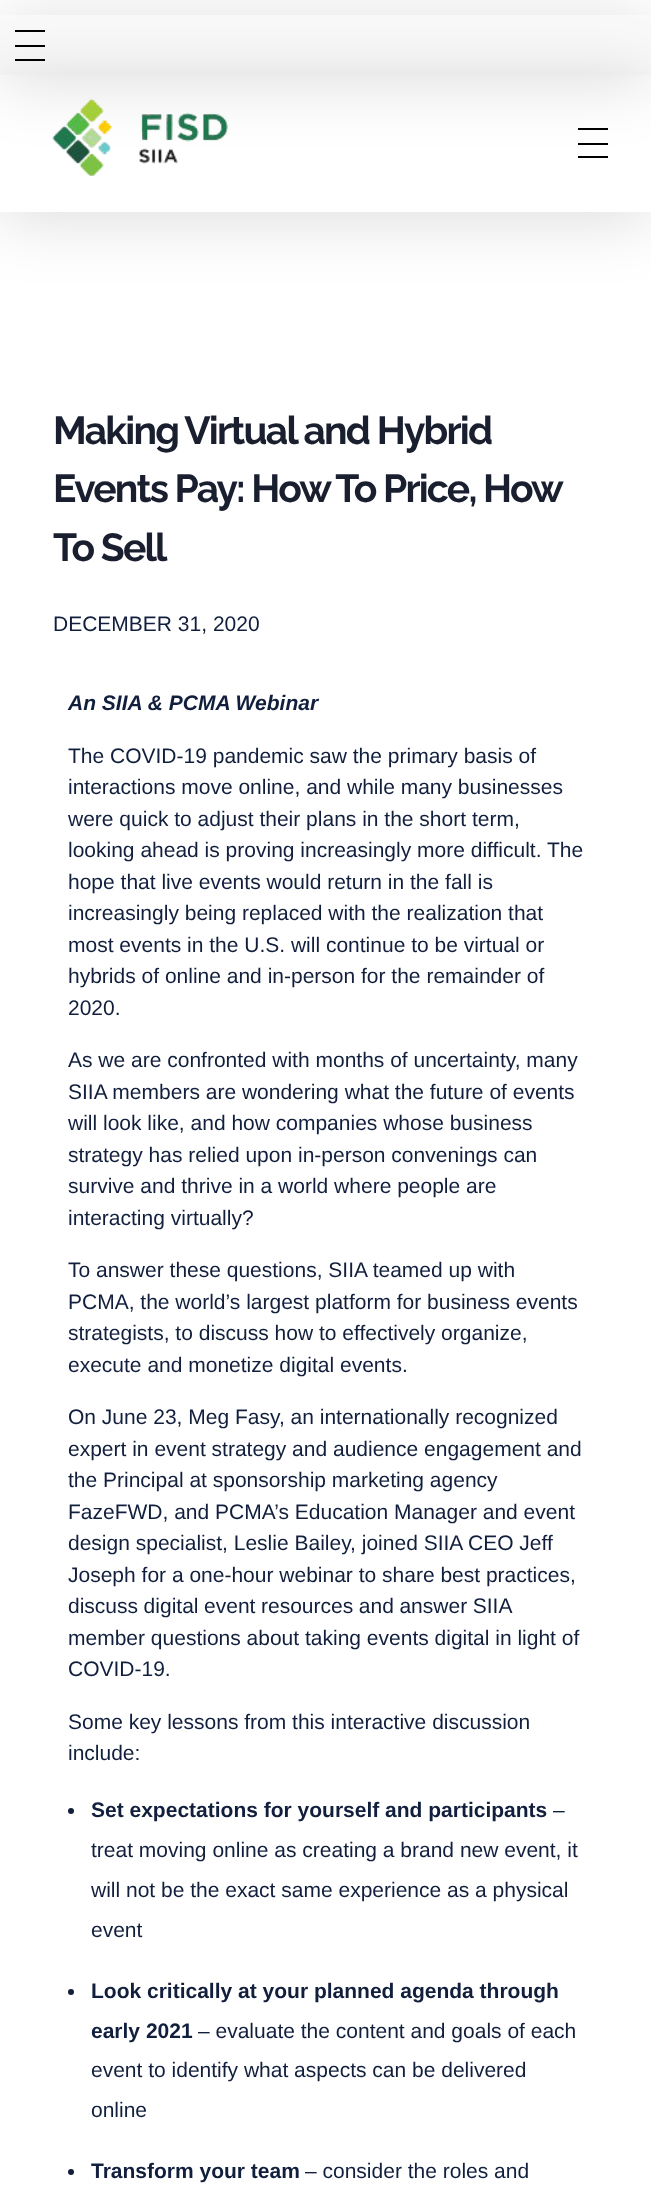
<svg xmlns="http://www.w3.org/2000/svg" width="651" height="2201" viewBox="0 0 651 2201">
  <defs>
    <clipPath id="clip1"><path d="M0 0H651V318H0ZM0 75H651V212H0Z" clip-rule="evenodd"/></clipPath>
  </defs>
  <rect width="100%" height="100%" fill="rgb(255,255,255)"/>
  <rect x="0" y="21" width="651" height="60" fill="rgba(0,0,0,0.14)" filter="blur(33px)"/>
  <rect x="0" y="15" width="651" height="60" fill="rgb(249,249,249)"/>
  <rect x="15" y="30" width="30" height="2" fill="rgb(0,0,0)"/>
  <rect x="15" y="45" width="30" height="2" fill="rgb(0,0,0)"/>
  <rect x="15" y="59" width="30" height="2" fill="rgb(0,0,0)"/>
  <g clip-path="url(#clip1)">
    <rect x="0" y="81" width="651" height="137" fill="rgba(0,0,0,0.14)" filter="blur(33px)"/>
  </g>
  <image x="52" y="98" width="176" height="78" href="pic1.png"/>
  <rect x="578" y="128" width="30" height="2" fill="rgb(0,0,0)"/>
  <rect x="578" y="143" width="30" height="2" fill="rgb(0,0,0)"/>
  <rect x="578" y="156" width="30" height="2" fill="rgb(0,0,0)"/>
  <g font-family="Raleway" font-size="39" font-weight="bold" letter-spacing="-1.8" fill="rgb(26,31,47)">
    <text>
      <tspan x="53" y="444">Making Virtual and Hybrid</tspan>
      <tspan x="53" y="502" word-spacing="-0.25">Events Pay: How To Price, How</tspan>
      <tspan x="53" y="561">To Sell</tspan>
    </text>
  </g>
  <text x="53" y="631" font-family="Liberation Sans" font-size="21" fill="rgb(17,31,61)">DECEMBER 31, 2020</text>
  <text x="68" y="710" font-family="Liberation Sans" font-size="21" font-weight="bold" font-style="italic" fill="rgb(17,31,61)">An SIIA &amp; PCMA Webinar</text>
  <g font-family="Liberation Sans" font-size="21" fill="rgb(17,31,61)">
    <text>
      <tspan x="68" y="763">The COVID-19 pandemic saw the primary basis of</tspan>
      <tspan x="68" y="794">interactions move online, and while many businesses</tspan>
      <tspan x="68" y="826">were quick to adjust their plans in the short term,</tspan>
      <tspan x="68" y="857">looking ahead is proving increasingly more difficult. The</tspan>
      <tspan x="68" y="889">hope that live events would return in the fall is</tspan>
      <tspan x="68" y="920">increasingly being replaced with the realization that</tspan>
      <tspan x="68" y="952">most events in the U.S. will continue to be virtual or</tspan>
      <tspan x="68" y="983">hybrids of online and in-person for the remainder of</tspan>
      <tspan x="68" y="1015">2020.</tspan>
    </text>
    <text>
      <tspan x="68" y="1067">As we are confronted with months of uncertainty, many</tspan>
      <tspan x="68" y="1099">SIIA members are wondering what the future of events</tspan>
      <tspan x="68" y="1130">will look like, and how companies whose business</tspan>
      <tspan x="68" y="1162">strategy has relied upon in-person convenings can</tspan>
      <tspan x="68" y="1193">survive and thrive in a world where people are</tspan>
      <tspan x="68" y="1225">interacting virtually?</tspan>
    </text>
    <text>
      <tspan x="68" y="1277">To answer these questions, SIIA teamed up with</tspan>
      <tspan x="68" y="1309">PCMA, the world’s largest platform for business events</tspan>
      <tspan x="68" y="1340">strategists, to discuss how to effectively organize,</tspan>
      <tspan x="68" y="1372">execute and monetize digital events.</tspan>
    </text>
    <text>
      <tspan x="68" y="1424">On June 23, Meg Fasy, an internationally recognized</tspan>
      <tspan x="68" y="1456">expert in event strategy and audience engagement and</tspan>
      <tspan x="68" y="1487">the Principal at sponsorship marketing agency</tspan>
      <tspan x="68" y="1519">FazeFWD, and PCMA’s Education Manager and event</tspan>
      <tspan x="68" y="1550">design specialist, Leslie Bailey, joined SIIA CEO Jeff</tspan>
      <tspan x="68" y="1582">Joseph for a one-hour webinar to share best practices,</tspan>
      <tspan x="68" y="1613" word-spacing="-0.25">discuss digital event resources and answer SIIA</tspan>
      <tspan x="68" y="1645">member questions about taking events digital in light of</tspan>
      <tspan x="68" y="1676">COVID-19.</tspan>
    </text>
    <text>
      <tspan x="68" y="1729">Some key lessons from this interactive discussion</tspan>
      <tspan x="68" y="1760">include:</tspan>
    </text>
  </g>
  <circle cx="71" cy="1811" r="3" fill="rgb(17,31,61)"/>
  <text x="91" y="1817" font-family="Liberation Sans" font-size="21" font-weight="bold" fill="rgb(17,31,61)">Set expectations for yourself and participants</text>
  <g font-family="Liberation Sans" font-size="21" fill="rgb(17,31,61)">
    <text x="553" y="1817">–</text>
    <text>
      <tspan x="91" y="1857">treat moving online as creating a brand new event, it</tspan>
      <tspan x="91" y="1897">will not be the exact same experience as a physical</tspan>
      <tspan x="91" y="1937">event</tspan>
    </text>
  </g>
  <circle cx="71" cy="1992" r="3" fill="rgb(17,31,61)"/>
  <g font-family="Liberation Sans" font-size="21" font-weight="bold" fill="rgb(17,31,61)">
    <text>
      <tspan x="91" y="1998">Look critically at your planned agenda through</tspan>
      <tspan x="91" y="2038">early 2021</tspan>
    </text>
  </g>
  <g font-family="Liberation Sans" font-size="21" fill="rgb(17,31,61)">
    <text x="198" y="2038">– evaluate the content and goals of each</text>
    <text>
      <tspan x="91" y="2077">event to identify what aspects can be delivered</tspan>
      <tspan x="91" y="2117">online</tspan>
    </text>
  </g>
  <circle cx="71" cy="2172" r="3" fill="rgb(17,31,61)"/>
  <text x="91" y="2178" font-family="Liberation Sans" font-size="21" font-weight="bold" fill="rgb(17,31,61)">Transform your team</text>
  <text x="305" y="2178" font-family="Liberation Sans" font-size="21" fill="rgb(17,31,61)">– consider the roles and</text>
</svg>
